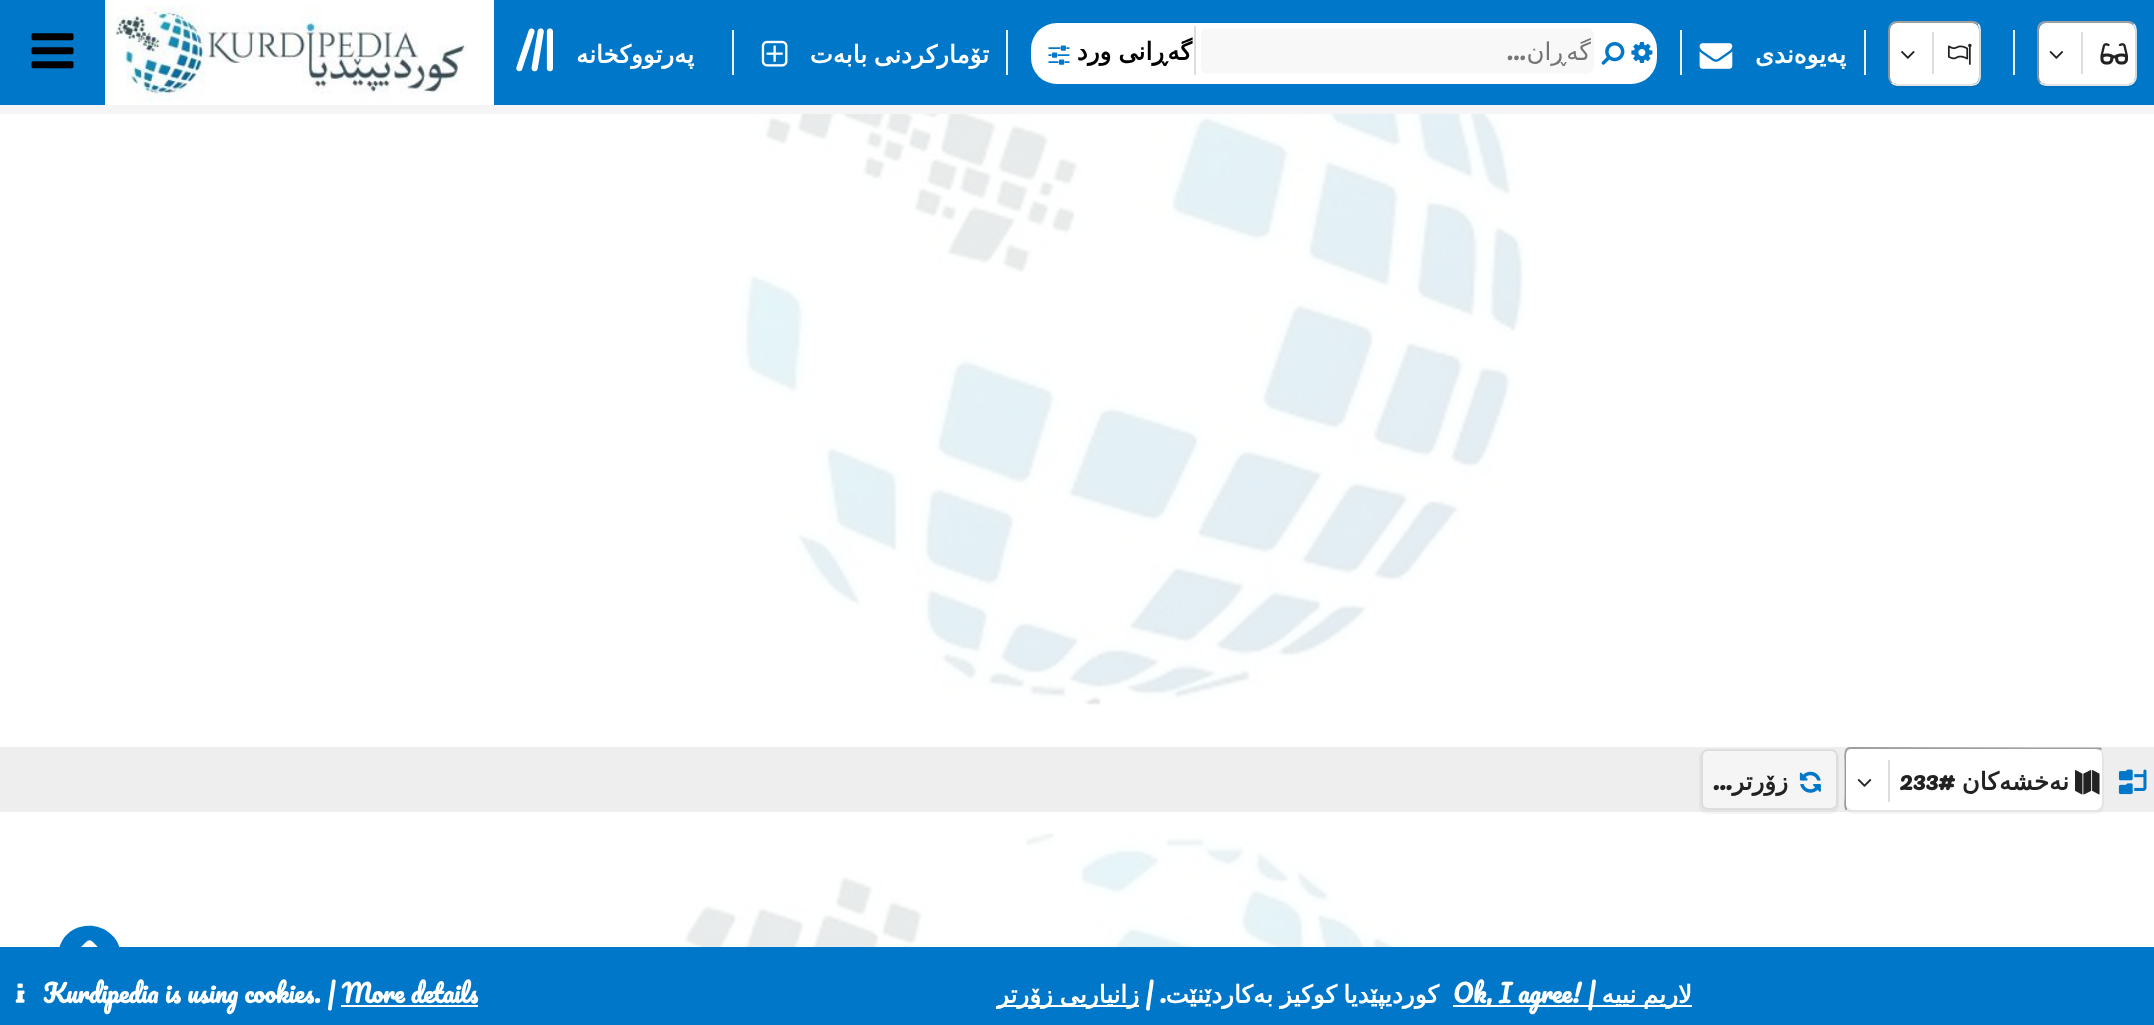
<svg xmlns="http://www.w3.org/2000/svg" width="2154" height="1025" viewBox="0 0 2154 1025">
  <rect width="100%" height="100%" fill="rgb(255,255,255)"/>
  <rect x="0" y="0" width="2154" height="105" fill="rgb(0,119,200)"/>
  <path d="M2133.5 24C2135 25.5 2136 27.5 2136 30V77C2136 79 2135 81 2133.5 82.5C2132 84 2130 85 2128 85H2046C2043.5 85 2041.5 84 2040 82.5" fill="none" stroke="rgb(238,238,238)" stroke-width="1.8"/>
  <path d="M2040 82.5C2038.5 81 2038 79 2038 77V30C2038 27.5 2038.5 25.5 2040 24C2041.5 22.5 2043.5 22 2046 22H2128C2130 22 2132 22.5 2133.5 24" fill="none" stroke="rgb(159,159,159)" stroke-width="1.8"/>
  <path d="M2041 24C2039 26 2037 29 2037 32V79C2037 84 2041 88 2046 88H2128C2133 88 2137 84 2137 79V32C2137 28 2135 25 2132 24C2134 25 2135 27 2135 30V77C2135 81 2132 84 2128 84H2046C2042 84 2039 81 2039 77V30C2039 28 2040 26 2041 24Z" fill="rgba(0,0,0,0.04)"/>
  <rect x="2039" y="23" width="96" height="61" rx="7" fill="rgb(255,255,255)"/>
  <image x="2100" y="43" width="28" height="22" href="pic1.png"/>
  <rect x="2081" y="32" width="2" height="42" fill="rgb(221,221,221)"/>
  <image x="2049" y="51" width="15" height="8" href="pic2.png"/>
  <rect x="2013" y="30" width="2" height="45" fill="rgb(238,238,238)"/>
  <path d="M1978 24C1979.5 25.5 1980 27.5 1980 30V77C1980 79 1979.5 81 1978 82.5C1976.5 84 1974.5 85 1972 85H1897C1895 85 1893 84 1891.5 82.5" fill="none" stroke="rgb(238,238,238)" stroke-width="1.8"/>
  <path d="M1891.5 82.5C1890 81 1889 79 1889 77V30C1889 27.5 1890 25.5 1891.5 24C1893 22.5 1895 22 1897 22H1972C1974.5 22 1976.5 22.5 1978 24" fill="none" stroke="rgb(159,159,159)" stroke-width="1.8"/>
  <path d="M1893 24C1890 25 1888 28 1888 32V79C1888 84 1892 88 1897 88H1972C1977 88 1981 84 1981 79V32C1981 29 1979 26 1977 24C1978 26 1979 28 1979 30V77C1979 81 1976 84 1972 84H1897C1893 84 1890 81 1890 77V30C1890 27 1891 25 1893 24Z" fill="rgba(0,0,0,0.04)"/>
  <rect x="1890" y="23" width="89" height="61" rx="7" fill="rgb(255,255,255)"/>
  <image x="1947" y="43" width="25" height="22" href="pic3.png"/>
  <rect x="1932" y="32" width="2" height="42" fill="rgb(221,221,221)"/>
  <image x="1901" y="51" width="14" height="8" href="pic4.png"/>
  <rect x="1864" y="30" width="2" height="45" fill="rgb(238,238,238)"/>
  <text x="1846" y="63" font-family="DejaVu Sans" font-size="24.5" font-weight="bold" direction="rtl" fill="rgb(255,255,255)">پەیوەندی</text>
  <rect x="1680" y="30" width="2" height="45" fill="rgb(238,238,238)"/>
  <image x="1699" y="43" width="34" height="26" href="pic5.png"/>
  <rect x="1031" y="23" width="626" height="61" rx="26" fill="rgb(255,255,255)"/>
  <image x="1631" y="42" width="22" height="21" href="pic6.png"/>
  <image x="1601" y="42" width="24" height="23" href="pic7.png"/>
  <image x="1201" y="28" width="393" height="46" href="pic8.png"/>
  <text x="1591" y="60" font-family="DejaVu Sans" font-size="24.5" direction="rtl" fill="rgb(117,117,117)">گەڕان</text>
  <text x="1526" y="60" font-family="Pacifico" font-size="24.5" direction="rtl" fill="rgb(117,117,117)">...</text>
  <rect x="1194" y="26" width="2" height="49" fill="rgb(221,221,221)"/>
  <text x="1192" y="60" word-spacing="-1" font-family="DejaVu Sans" font-size="24.5" font-weight="bold" direction="rtl" fill="rgb(0,0,0)">گەڕانی ورد</text>
  <image x="1048" y="45" width="22" height="20" href="pic9.png"/>
  <rect x="1006" y="30" width="2" height="45" fill="rgb(238,238,238)"/>
  <text x="989" y="63" word-spacing="-1" font-family="DejaVu Sans" font-size="24.5" font-weight="bold" direction="rtl" fill="rgb(255,255,255)">تۆمارکردنی بابەت</text>
  <image x="761" y="40" width="27" height="27" href="pic10.png"/>
  <rect x="732" y="30" width="2" height="45" fill="rgb(238,238,238)"/>
  <text x="694" y="63" font-family="DejaVu Sans" font-size="24.5" font-weight="bold" direction="rtl" fill="rgb(255,255,255)">پەرتووکخانە</text>
  <image x="516" y="28" width="37" height="44" href="pic11.png"/>
  <rect x="105" y="0" width="389" height="105" fill="rgb(255,255,255)"/>
  <image x="115" y="5" width="353" height="97" href="pic12.png"/>
  <image x="31" y="33" width="43" height="36" href="pic13.png"/>
  <rect x="0" y="105" width="2154" height="9" fill="rgb(245,245,245)"/>
  <image x="639" y="114" width="885" height="591" href="pic14.png"/>
  <rect x="0" y="747" width="2154" height="65" fill="rgb(238,238,238)"/>
  <image x="2118" y="769" width="29" height="26" href="pic15.png"/>
  <path d="M1846.5 810C1844 807 1845.5 799.5 1845.5 797.5V761.5C1845.5 758.5 1843.5 748 1850 748L2100 748.5L2101.5 749.5" fill="none" stroke="rgb(159,159,159)" stroke-width="1.8"/>
  <path d="M2104 758C2104 753 2100 749 2095 749C2099 749 2102 752 2102 756V803C2102 807 2099 810 2095 810H1853C1849 810 1846 807 1846 803V756C1846 754 1847 752 1848 751C1846 753 1845 755 1845 758V805C1845 810 1849 814 1854 814H2095C2100 814 2104 810 2104 805Z" fill="rgba(0,0,0,0.04)"/>
  <rect x="1846" y="749" width="256" height="61" rx="7" fill="rgb(255,255,255)"/>
  <image x="2075" y="770" width="25" height="25" href="pic16.png"/>
  <text x="2069" y="790" font-family="DejaVu Sans" font-size="24.5" font-weight="bold" direction="rtl" fill="rgb(34,34,34)">نەخشەکان</text>
  <text x="1955" y="790" font-family="Pacifico" font-size="24.5" font-weight="bold" direction="rtl" fill="rgb(34,34,34)">#</text>
  <text x="1899" y="790" font-family="Pacifico" font-size="24.5" font-weight="bold" fill="rgb(34,34,34)">233</text>
  <rect x="1888" y="760" width="2" height="42" fill="rgb(221,221,221)"/>
  <image x="1857" y="779" width="15" height="8" href="pic17.png"/>
  <path d="M1708 749C1703 749 1699 753 1699 758V805C1699 810 1703 814 1708 814H1830C1835 814 1839 810 1839 805V758C1839 754 1837 751 1834 750C1836 751 1838 753 1838 756V803C1838 807 1834 810 1830 810H1708C1704 810 1701 807 1701 803V756C1701 752 1704 749 1708 749Z" fill="rgba(0,0,0,0.04)"/>
  <rect x="1702" y="750" width="135" height="59" rx="6" fill="rgb(245,245,245)" stroke="rgb(221,221,221)" stroke-width="2"/>
  <image x="1799" y="771" width="22" height="22" href="pic18.png"/>
  <text x="1732" y="790" font-family="Pacifico" font-size="24.5" font-weight="bold" direction="rtl" fill="rgb(34,34,34)">...</text>
  <text x="1788" y="790" font-family="DejaVu Sans" font-size="24.5" font-weight="bold" direction="rtl" fill="rgb(34,34,34)">زۆرتر</text>
  <image x="659" y="833" width="807" height="114" href="pic19.png"/>
  <path d="M73 967C65 960 67 961 75 953C93 936 86 936 104 953C107 957 113 959 109 964C104 968 104 970 100 965L89 955L81 963C79 964 76 970 73 967ZM62 941C59 947 57 953 58 959C60 990 101 1000 117 973C120 968 121 961 121 955C119 924 77 915 62 941Z" fill="rgb(0,119,200)"/>
  <rect x="0" y="947" width="2154" height="78" fill="rgb(0,119,200)"/>
  <rect x="1453" y="1005" width="239" height="2" fill="rgb(255,255,255)"/>
  <text x="1692" y="1003" word-spacing="-1" font-family="DejaVu Sans" font-size="24.5" font-weight="bold" direction="rtl" fill="rgb(255,255,255)">لاریم نییە</text>
  <text x="1453" y="1003" font-family="Pacifico" font-size="24.5" font-weight="bold" fill="rgb(255,255,255)">Ok, I agree! |</text>
  <g font-family="DejaVu Sans" font-size="24.5" font-weight="bold" direction="rtl" fill="rgb(255,255,255)">
    <text x="1439" y="1003">کوردیپێدیا</text>
    <text x="1337" y="1003">کوکیز</text>
    <text x="1273" y="1003">بەکاردێنێت</text>
  </g>
  <text x="1166" y="1003" font-family="Pacifico" font-size="24.5" font-weight="bold" direction="rtl" fill="rgb(255,255,255)">. |</text>
  <rect x="998" y="1005" width="141" height="2" fill="rgb(255,255,255)"/>
  <text x="1139" y="1003" word-spacing="-1" font-family="DejaVu Sans" font-size="24.5" font-weight="bold" direction="rtl" fill="rgb(255,255,255)">زانیاریی زۆرتر</text>
  <text x="43" y="1003" font-family="Pacifico" font-size="24.5" font-weight="bold" fill="rgb(255,255,255)">Kurdipedia is using cookies. | More details</text>
  <image x="15" y="983" width="10" height="20" href="pic20.png"/>
  <rect x="341" y="1005" width="137" height="2" fill="rgb(255,255,255)"/>
</svg>
